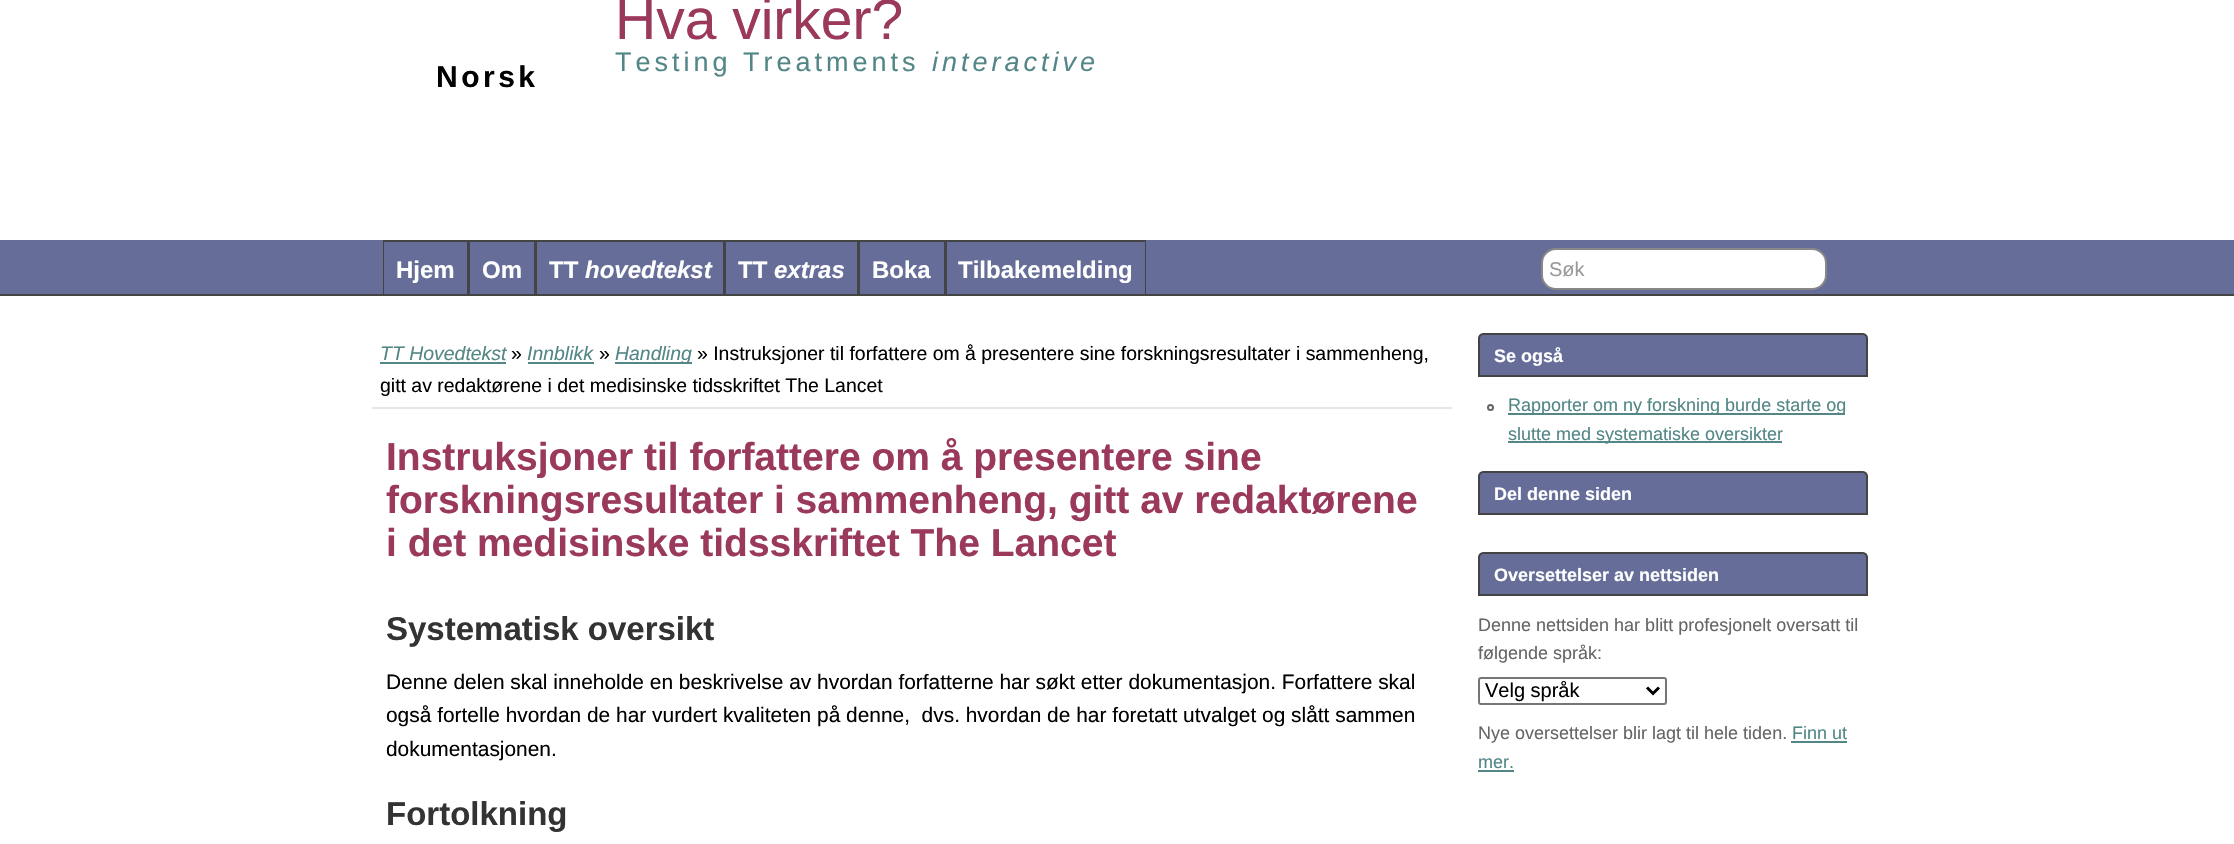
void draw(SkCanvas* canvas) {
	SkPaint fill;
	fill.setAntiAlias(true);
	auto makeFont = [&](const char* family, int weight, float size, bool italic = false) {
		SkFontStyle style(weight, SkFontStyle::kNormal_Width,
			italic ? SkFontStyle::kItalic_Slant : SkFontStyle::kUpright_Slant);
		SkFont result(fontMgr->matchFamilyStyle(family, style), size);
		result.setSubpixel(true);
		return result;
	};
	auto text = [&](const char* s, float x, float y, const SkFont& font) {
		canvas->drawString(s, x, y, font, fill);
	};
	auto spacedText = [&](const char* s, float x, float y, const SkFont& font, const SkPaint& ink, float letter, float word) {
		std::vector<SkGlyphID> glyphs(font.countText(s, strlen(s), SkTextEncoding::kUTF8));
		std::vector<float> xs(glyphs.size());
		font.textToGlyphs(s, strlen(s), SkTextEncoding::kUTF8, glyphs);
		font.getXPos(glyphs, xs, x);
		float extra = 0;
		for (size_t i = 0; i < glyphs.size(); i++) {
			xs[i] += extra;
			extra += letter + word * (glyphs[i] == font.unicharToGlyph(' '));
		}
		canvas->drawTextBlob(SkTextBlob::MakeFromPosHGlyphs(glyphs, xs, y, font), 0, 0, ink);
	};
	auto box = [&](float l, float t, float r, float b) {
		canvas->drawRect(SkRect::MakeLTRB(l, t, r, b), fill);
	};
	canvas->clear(0xFFFFFFFF);
	fill.setColor(0xFF656D98);
	box(0, 240, 2234, 294);
	fill.setColor(0xFF444444);
	box(0, 294, 2234, 296);
	fill.setStyle(SkPaint::kStroke_Style);
	fill.setStrokeWidth(2);
	canvas->drawRect(SkRect::MakeLTRB(384, 241, 467, 295), fill);
	fill.setStyle(SkPaint::kFill_Style);
	fill.setColor(0xFF656D98);
	box(384, 242, 467, 294);
	fill.setStyle(SkPaint::kStroke_Style);
	fill.setColor(0xFF444444);
	canvas->drawRect(SkRect::MakeLTRB(469, 241, 535, 295), fill);
	canvas->drawRect(SkRect::MakeLTRB(537, 241, 724, 295), fill);
	fill.setStyle(SkPaint::kFill_Style);
	fill.setColor(0xFF656D98);
	box(537, 242, 538, 294);
	fill.setStyle(SkPaint::kStroke_Style);
	fill.setColor(0xFF444444);
	canvas->drawRect(SkRect::MakeLTRB(726, 241, 857, 295), fill);
	fill.setStyle(SkPaint::kFill_Style);
	fill.setColor(0xFF656D98);
	box(726, 242, 857, 294);
	fill.setStyle(SkPaint::kStroke_Style);
	fill.setColor(0xFF444444);
	canvas->drawRect(SkRect::MakeLTRB(859, 241, 944, 295), fill);
	fill.setStyle(SkPaint::kFill_Style);
	fill.setColor(0xFF656D98);
	box(943, 242, 944, 294);
	fill.setStyle(SkPaint::kStroke_Style);
	fill.setColor(0xFF444444);
	canvas->drawRect(SkRect::MakeLTRB(946, 241, 1145, 295), fill);
	fill.setStyle(SkPaint::kFill_Style);
	fill.setColor(0xFF656D98);
	box(1144, 242, 1145, 294);
	fill.setColor(0xFFFFFFFF);
	canvas->drawRoundRect(SkRect::MakeLTRB(1542, 249, 1826, 289), 14, 14, fill);
	fill.setStyle(SkPaint::kStroke_Style);
	fill.setColor(0xFF888888);
	canvas->drawRoundRect(SkRect::MakeLTRB(1542, 249, 1826, 289), 14, 14, fill);
	fill.setStyle(SkPaint::kFill_Style);
	fill.setColor(0xFFE7E7E7);
	box(372, 407, 1452, 409);
	fill.setColor(0xFF538687);
	box(380, 362, 506, 364);
	box(528, 362, 594, 364);
	box(615, 362, 692, 364);
	fill.setColor(0xFF656D98);
	canvas->drawPath(SkPathBuilder().moveTo(1483, 334).lineTo(1863, 334).cubicTo(1865, 334, 1867, 336, 1867, 338).lineTo(1867, 376).lineTo(1479, 376).lineTo(1479, 338).cubicTo(1479, 336, 1481, 334, 1483, 334).close().detach(), fill);
	fill.setStyle(SkPaint::kStroke_Style);
	fill.setColor(0xFF444444);
	canvas->drawPath(SkPathBuilder().moveTo(1483, 334).lineTo(1863, 334).cubicTo(1865, 334, 1867, 336, 1867, 338).lineTo(1867, 376).lineTo(1479, 376).lineTo(1479, 338).cubicTo(1479, 336, 1481, 334, 1483, 334).close().detach(), fill);
	fill.setColor(0xFF666666);
	canvas->drawCircle(1490.5f, 407.5f, 2.5f, fill);
	fill.setStyle(SkPaint::kFill_Style);
	fill.setColor(0xFF538687);
	box(1508, 413, 1845, 415);
	box(1508, 441, 1782, 443);
	fill.setColor(0xFF656D98);
	canvas->drawPath(SkPathBuilder().moveTo(1483, 472).lineTo(1863, 472).cubicTo(1865, 472, 1867, 474, 1867, 476).lineTo(1867, 514).lineTo(1479, 514).lineTo(1479, 476).cubicTo(1479, 474, 1481, 472, 1483, 472).close().detach(), fill);
	fill.setStyle(SkPaint::kStroke_Style);
	fill.setColor(0xFF444444);
	canvas->drawPath(SkPathBuilder().moveTo(1483, 472).lineTo(1863, 472).cubicTo(1865, 472, 1867, 474, 1867, 476).lineTo(1867, 514).lineTo(1479, 514).lineTo(1479, 476).cubicTo(1479, 474, 1481, 472, 1483, 472).close().detach(), fill);
	fill.setStyle(SkPaint::kFill_Style);
	fill.setColor(0xFF656D98);
	canvas->drawPath(SkPathBuilder().moveTo(1483, 553).lineTo(1863, 553).cubicTo(1865, 553, 1867, 555, 1867, 557).lineTo(1867, 595).lineTo(1479, 595).lineTo(1479, 557).cubicTo(1479, 555, 1481, 553, 1483, 553).close().detach(), fill);
	fill.setStyle(SkPaint::kStroke_Style);
	fill.setColor(0xFF444444);
	canvas->drawPath(SkPathBuilder().moveTo(1483, 553).lineTo(1863, 553).cubicTo(1865, 553, 1867, 555, 1867, 557).lineTo(1867, 595).lineTo(1479, 595).lineTo(1479, 557).cubicTo(1479, 555, 1481, 553, 1483, 553).close().detach(), fill);
	fill.setColor(0xFF767676);
	canvas->drawRoundRect(SkRect::MakeLTRB(1479, 678, 1666, 704), 2, 2, fill);
	fill.setStrokeWidth(3);
	fill.setColor(0xFF000000);
	canvas->drawPath(SkPathBuilder().moveTo(1647, 687.5f).lineTo(1653, 693.5f).lineTo(1659, 687.5f).detach(), fill);
	fill.setStyle(SkPaint::kFill_Style);
	fill.setColor(0xFF538687);
	box(1791, 741, 1847, 743);
	box(1478, 770, 1514, 772);
	auto font1 = makeFont("Liberation Sans", 700, 30);
	fill.setColor(0xFF000000);
	spacedText("Norsk", 436, 87, font1, fill, 3.5f, 0);
	auto font2 = makeFont("Liberation Sans", 400, 57);
	fill.setColor(0xFF9A395C);
	text("Hva virker?", 615, 39, font2);
	auto font3 = makeFont("Liberation Sans", 400, 27);
	fill.setColor(0xFF538687);
	spacedText("Testing Treatments", 615, 71, font3, fill, 4, 0);
	auto font4 = makeFont("Liberation Sans", 400, 27, true);
	spacedText("interactive", 932, 71, font4, fill, 4, 0);
	auto font5 = makeFont("Liberation Sans", 700, 24);
	fill.setColor(0xFFFFFFFF);
	text("Hjem", 396, 278, font5);
	text("Om", 482, 278, font5);
	text("TT", 549, 278, font5);
	auto font6 = makeFont("Liberation Sans", 700, 24, true);
	text("hovedtekst", 585, 278, font6);
	text("TT", 738, 278, font5);
	text("extras", 774, 278, font6);
	text("Boka", 872, 278, font5);
	text("Tilbakemelding", 958, 278, font5);
	auto font7 = makeFont("Liberation Sans", 400, 20);
	fill.setColor(0xFF999999);
	text("Søk", 1549, 276, font7);
	auto font8 = makeFont("Liberation Sans", 400, 19.45f, true);
	fill.setColor(0xFF538687);
	text("TT Hovedtekst", 380, 360, font8);
	auto font9 = makeFont("Liberation Sans", 400, 19.45f);
	fill.setColor(0xFF000000);
	text("»", 511, 360, font9);
	fill.setColor(0xFF538687);
	text("Innblikk", 527, 360, font8);
	fill.setColor(0xFF000000);
	text("»", 599, 360, font9);
	fill.setColor(0xFF538687);
	text("Handling", 615, 360, font8);
	fill.setColor(0xFF000000);
	text("» Instruksjoner til forfattere om å presentere sine forskningsresultater i sammenheng,", 697, 360, font9);
	text("gitt av redaktørene i det medisinske tidsskriftet The Lancet", 380, 392, font9);
	auto font10 = makeFont("Liberation Sans", 700, 39);
	fill.setColor(0xFF9A395C);
	text("Instruksjoner til forfattere om å presentere sine", 386, 470, font10);
	text("forskningsresultater i sammenheng, gitt av redaktørene", 386, 513, font10);
	text("i det medisinske tidsskriftet The Lancet", 386, 556, font10);
	auto font11 = makeFont("Liberation Sans", 700, 33);
	fill.setColor(0xFF333333);
	text("Systematisk oversikt", 386, 640, font11);
	auto font12 = makeFont("Liberation Sans", 400, 20.9f);
	fill.setColor(0xFF000000);
	text("Denne delen skal inneholde en beskrivelse av hvordan forfatterne har søkt etter dokumentasjon. Forfattere skal", 386, 689, font12);
	text("også fortelle hvordan de har vurdert kvaliteten på denne,  dvs. hvordan de har foretatt utvalget og slått sammen", 386, 722, font12);
	text("dokumentasjonen.", 386, 756, font12);
	fill.setColor(0xFF333333);
	text("Fortolkning", 386, 825, font11);
	auto font13 = makeFont("Liberation Sans", 700, 18);
	fill.setColor(0xFFFFFFFF);
	text("Se også", 1494, 362, font13);
	auto font14 = makeFont("Liberation Sans", 400, 18);
	fill.setColor(0xFF538687);
	text("Rapporter om ny forskning burde starte og", 1508, 411, font14);
	text("slutte med systematiske oversikter", 1508, 440, font14);
	fill.setColor(0xFFFFFFFF);
	text("Del denne siden", 1494, 500, font13);
	text("Oversettelser av nettsiden", 1494, 581, font13);
	fill.setColor(0xFF666666);
	text("Denne nettsiden har blitt profesjonelt oversatt til", 1478, 631, font14);
	text("følgende språk:", 1478, 659, font14);
	fill.setColor(0xFF000000);
	text("Velg språk", 1485, 697, font7);
	fill.setColor(0xFF666666);
	text("Nye oversettelser blir lagt til hele tiden.", 1478, 739, font14);
	fill.setColor(0xFF538687);
	text("Finn ut", 1792, 739, font14);
	text("mer.", 1478, 768, font14);
}
